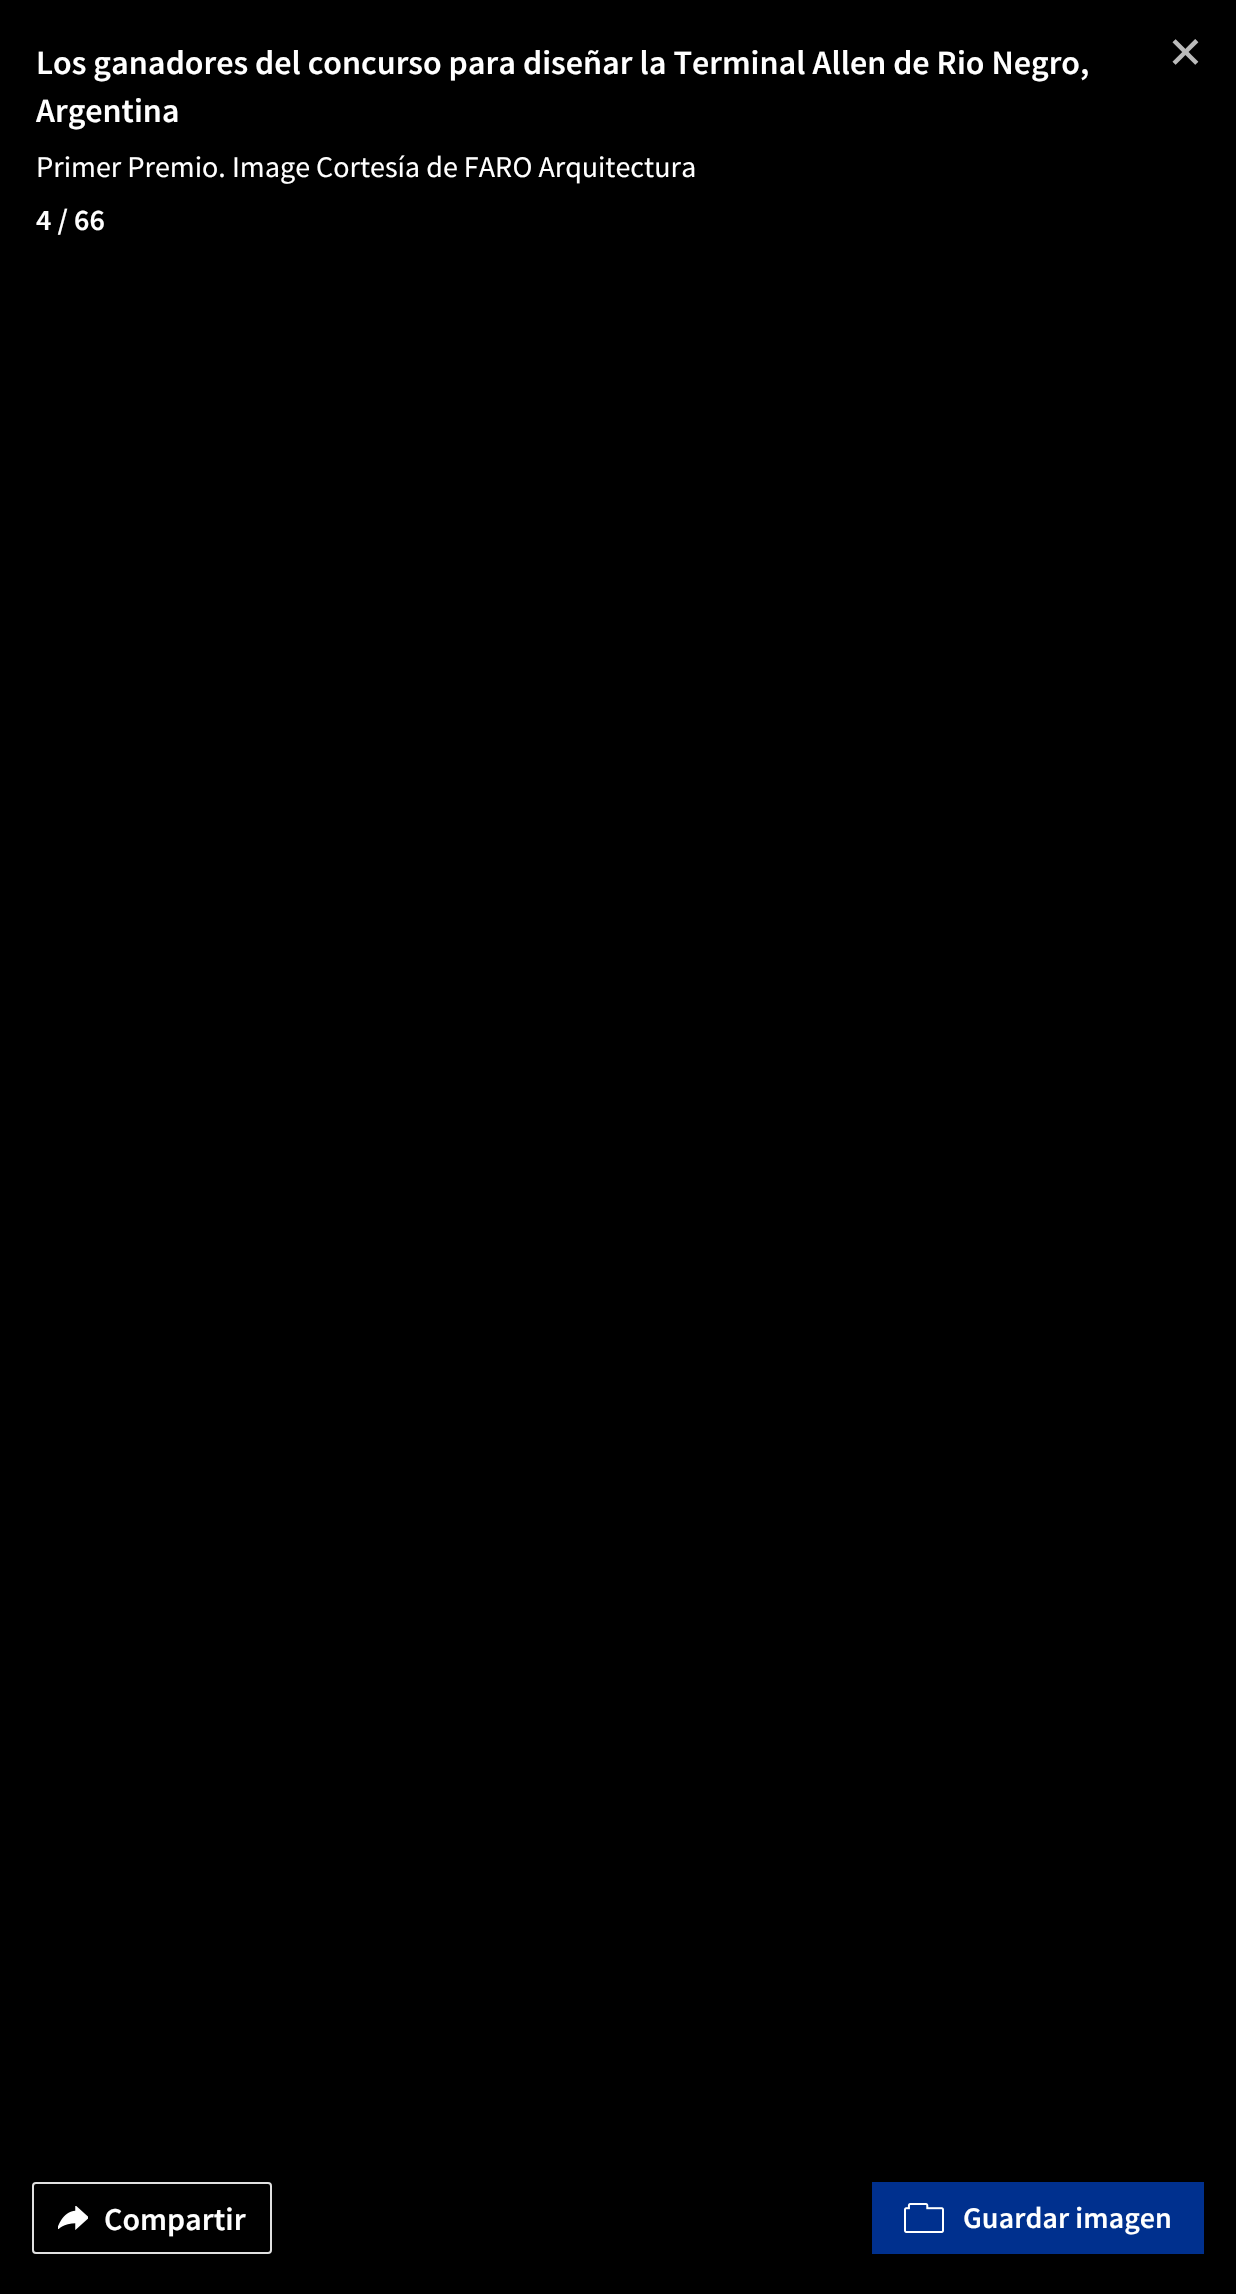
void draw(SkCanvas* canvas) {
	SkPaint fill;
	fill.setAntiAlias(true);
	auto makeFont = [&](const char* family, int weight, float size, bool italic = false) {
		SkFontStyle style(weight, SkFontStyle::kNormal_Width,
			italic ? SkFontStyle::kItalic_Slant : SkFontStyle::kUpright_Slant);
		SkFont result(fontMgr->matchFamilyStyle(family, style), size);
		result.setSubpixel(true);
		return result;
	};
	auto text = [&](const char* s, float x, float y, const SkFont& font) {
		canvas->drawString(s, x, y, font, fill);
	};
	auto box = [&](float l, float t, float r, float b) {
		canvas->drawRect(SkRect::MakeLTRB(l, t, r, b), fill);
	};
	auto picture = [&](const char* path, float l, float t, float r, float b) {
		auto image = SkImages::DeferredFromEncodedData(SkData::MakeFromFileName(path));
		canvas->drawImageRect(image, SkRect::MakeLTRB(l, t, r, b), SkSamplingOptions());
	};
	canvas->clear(0xFF000000);
	fill.setStyle(SkPaint::kStroke_Style);
	fill.setStrokeWidth(2);
	fill.setColor(0xFFE1E1E1);
	canvas->drawRoundRect(SkRect::MakeLTRB(33, 2183, 271, 2253), 3, 3, fill);
	picture("image0.png", 58, 2206, 88, 2230);
	fill.setStyle(SkPaint::kFill_Style);
	fill.setColor(0xFF00308E);
	box(872, 2182, 1204, 2254);
	picture("image1.png", 904, 2203, 944, 2233);
	auto font1 = makeFont("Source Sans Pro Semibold", 600, 34);
	fill.setColor(0xFFFFFFFF);
	text("Los ganadores del concurso para diseñar la Terminal Allen de Rio Negro,", 36, 74, font1);
	text("Argentina", 36, 122, font1);
	auto font2 = makeFont("Source Sans Pro", 400, 30);
	text("Primer Premio. Image Cortesía de FARO Arquitectura", 36, 177, font2);
	auto font3 = makeFont("Source Sans Pro Semibold", 600, 30);
	text("4 / 66", 36, 230, font3);
	auto font4 = makeFont("DejaVu Sans", 400, 44);
	fill.setColor(0xFFBBBBBB);
	text("✕", 1167, 68, font4);
	auto font5 = makeFont("Source Sans Pro Semibold", 600, 32);
	fill.setColor(0xFFFFFFFF);
	text("Compartir", 104, 2230, font5);
	text("Guardar imagen", 963, 2228, font3);
}
